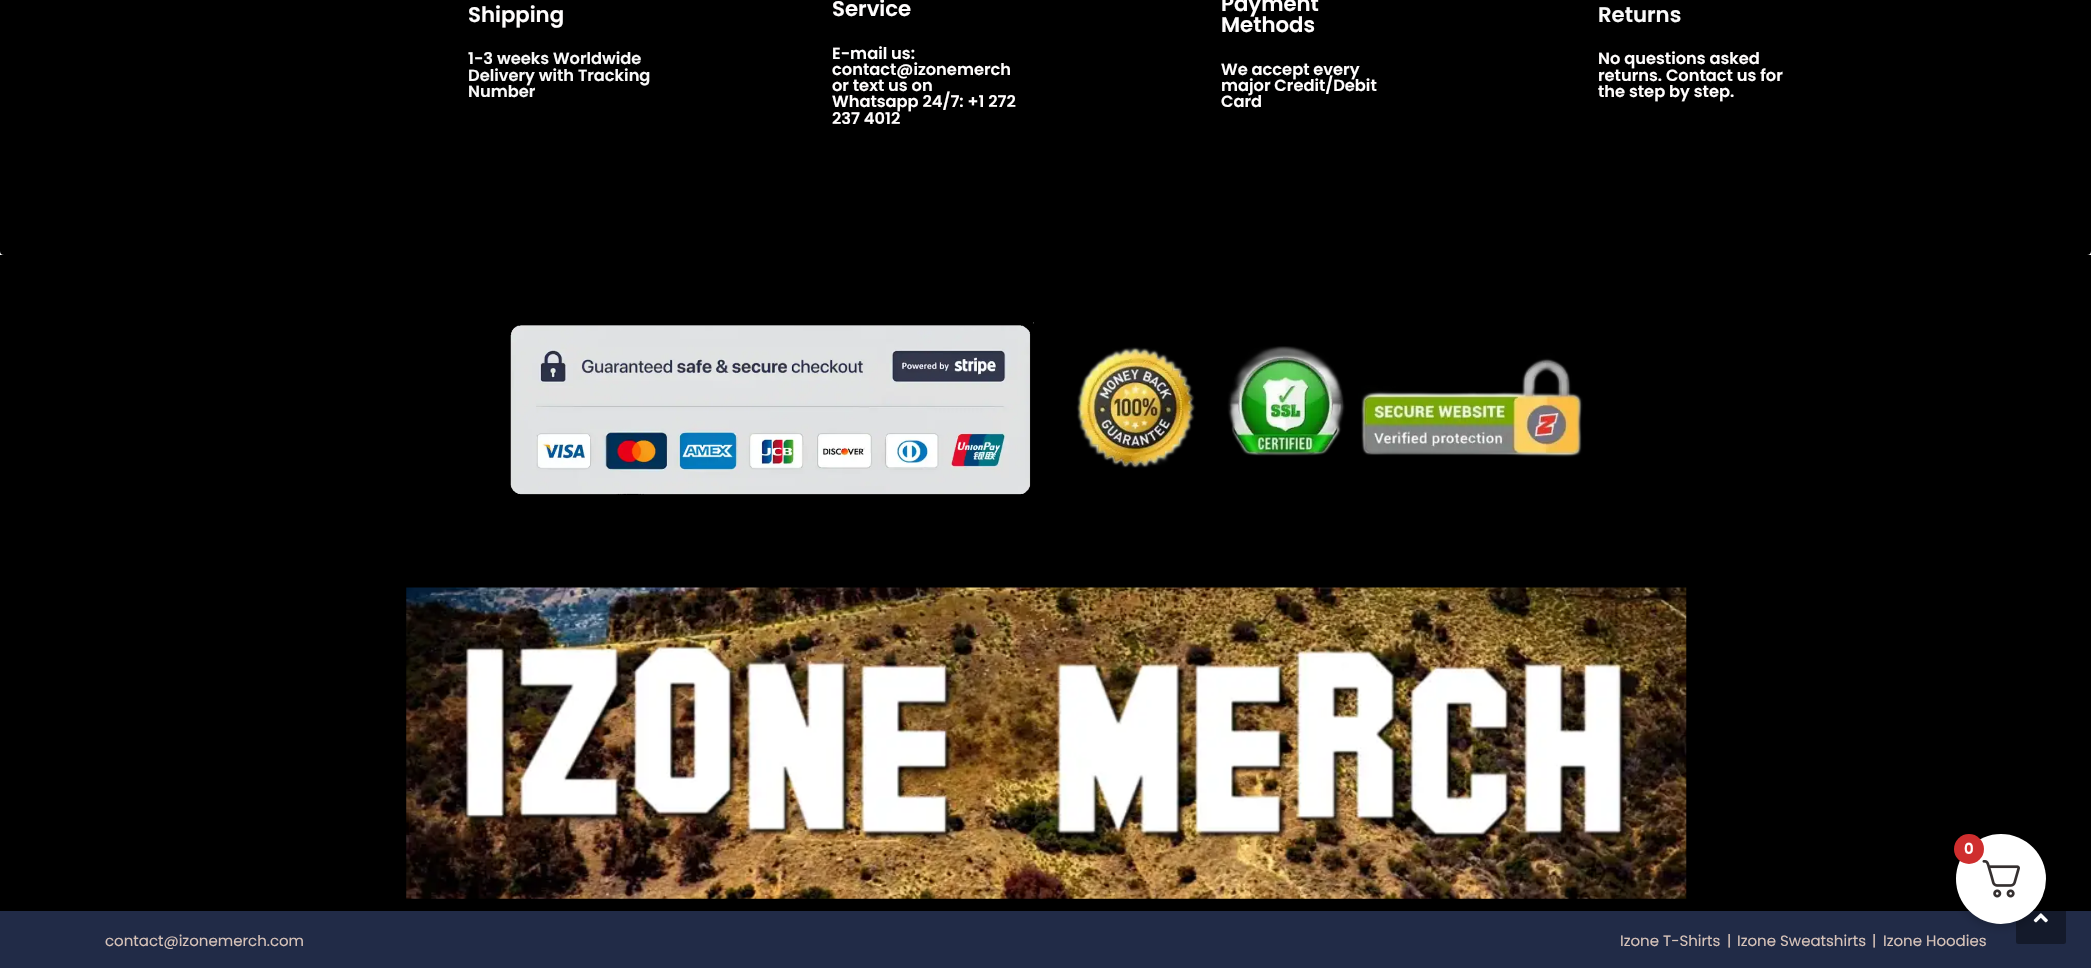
void draw(SkCanvas* canvas) {
	SkPaint fill;
	fill.setAntiAlias(true);
	auto makeFont = [&](const char* family, int weight, float size, bool italic = false) {
		SkFontStyle style(weight, SkFontStyle::kNormal_Width,
			italic ? SkFontStyle::kItalic_Slant : SkFontStyle::kUpright_Slant);
		SkFont result(fontMgr->matchFamilyStyle(family, style), size);
		result.setSubpixel(true);
		return result;
	};
	auto text = [&](const char* s, float x, float y, const SkFont& font) {
		canvas->drawString(s, x, y, font, fill);
	};
	auto box = [&](float l, float t, float r, float b) {
		canvas->drawRect(SkRect::MakeLTRB(l, t, r, b), fill);
	};
	auto roundBox = [&](float l, float t, float r, float b, float radius) {
		canvas->drawRoundRect(SkRect::MakeLTRB(l, t, r, b), radius, radius, fill);
	};
	auto picture = [&](const char* path, float l, float t, float r, float b) {
		auto image = SkImages::DeferredFromEncodedData(SkData::MakeFromFileName(path));
		canvas->drawImageRect(image, SkRect::MakeLTRB(l, t, r, b), SkSamplingOptions());
	};
	canvas->clear(0xFFFFFFFF);
	fill.setColor(0xFF000000);
	roundBox(0, -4, 2091, 255, 4);
	box(0, 255, 2091, 911);
	picture("image0.png", 510, 322, 1034, 495);
	picture("image1.png", 1076, 346, 1583, 468);
	picture("image2.png", 406, 587, 1687, 899);
	fill.setColor(0xFF212B47);
	box(0, 911, 2091, 968);
	fill.setColor(0x66000000);
	roundBox(2016, 894, 2066, 944, 2.5f);
	picture("image4.png", 2033, 913, 2048, 923);
	fill.setColor(0x40000000);
	fill.setMaskFilter(SkMaskFilter::MakeBlur(kNormal_SkBlurStyle, 5));
	canvas->drawRoundRect(SkRect::MakeLTRB(1956, 836, 2046, 926), 45, 45, fill);
	fill.setMaskFilter(nullptr);
	fill.setColor(0xFFFFFFFF);
	canvas->drawCircle(2001, 879, 45, fill);
	picture("image3.png", 1982, 860, 2020, 898);
	fill.setColor(0xFFCF2E2E);
	canvas->drawCircle(1969, 849, 15, fill);
	auto font1 = makeFont("Poppins", 600, 21.25f);
	fill.setColor(0xFFFFFDFD);
	text("Shipping", 468, 22, font1);
	auto font2 = makeFont("Poppins", 600, 16.25f);
	fill.setColor(0xFFF9F9F9);
	text("1-3 weeks Worldwide", 468, 64, font2);
	text("Delivery with Tracking", 468, 81, font2);
	text("Number", 468, 97, font2);
	fill.setColor(0xFFFFFDFD);
	text("Service", 832, 16, font1);
	text("E-mail us:", 832, 59, font2);
	text("contact@izonemerch", 832, 75, font2);
	text("or text us on", 832, 91, font2);
	text("Whatsapp 24/7: +1 272", 832, 107, font2);
	text("237 4012", 832, 124, font2);
	text("Payment", 1221, 11, font1);
	text("Methods", 1221, 32, font1);
	text("We accept every", 1221, 75, font2);
	text("major Credit/Debit", 1221, 91, font2);
	text("Card", 1221, 107, font2);
	fill.setColor(0xFFF9F9F9);
	text("Returns", 1598, 22, font1);
	fill.setColor(0xFFFFFDFD);
	text("No questions asked", 1598, 64, font2);
	text("returns. Contact us for", 1598, 81, font2);
	text("the step by step.", 1598, 97, font2);
	auto font3 = makeFont("Poppins", 400, 15);
	fill.setColor(0xFFD7C3B9);
	text("contact@izonemerch.com", 105, 946, font3);
	text("Izone T-Shirts", 1620, 946, font3);
	text("|", 1727, 946, font3);
	text("Izone Sweatshirts", 1737, 946, font3);
	text("|", 1872, 946, font3);
	text("Izone Hoodies", 1883, 946, font3);
	auto font4 = makeFont("Poppins", 600, 15);
	fill.setColor(0xFFFFFDFD);
	text("0", 1964, 854, font4);
}
